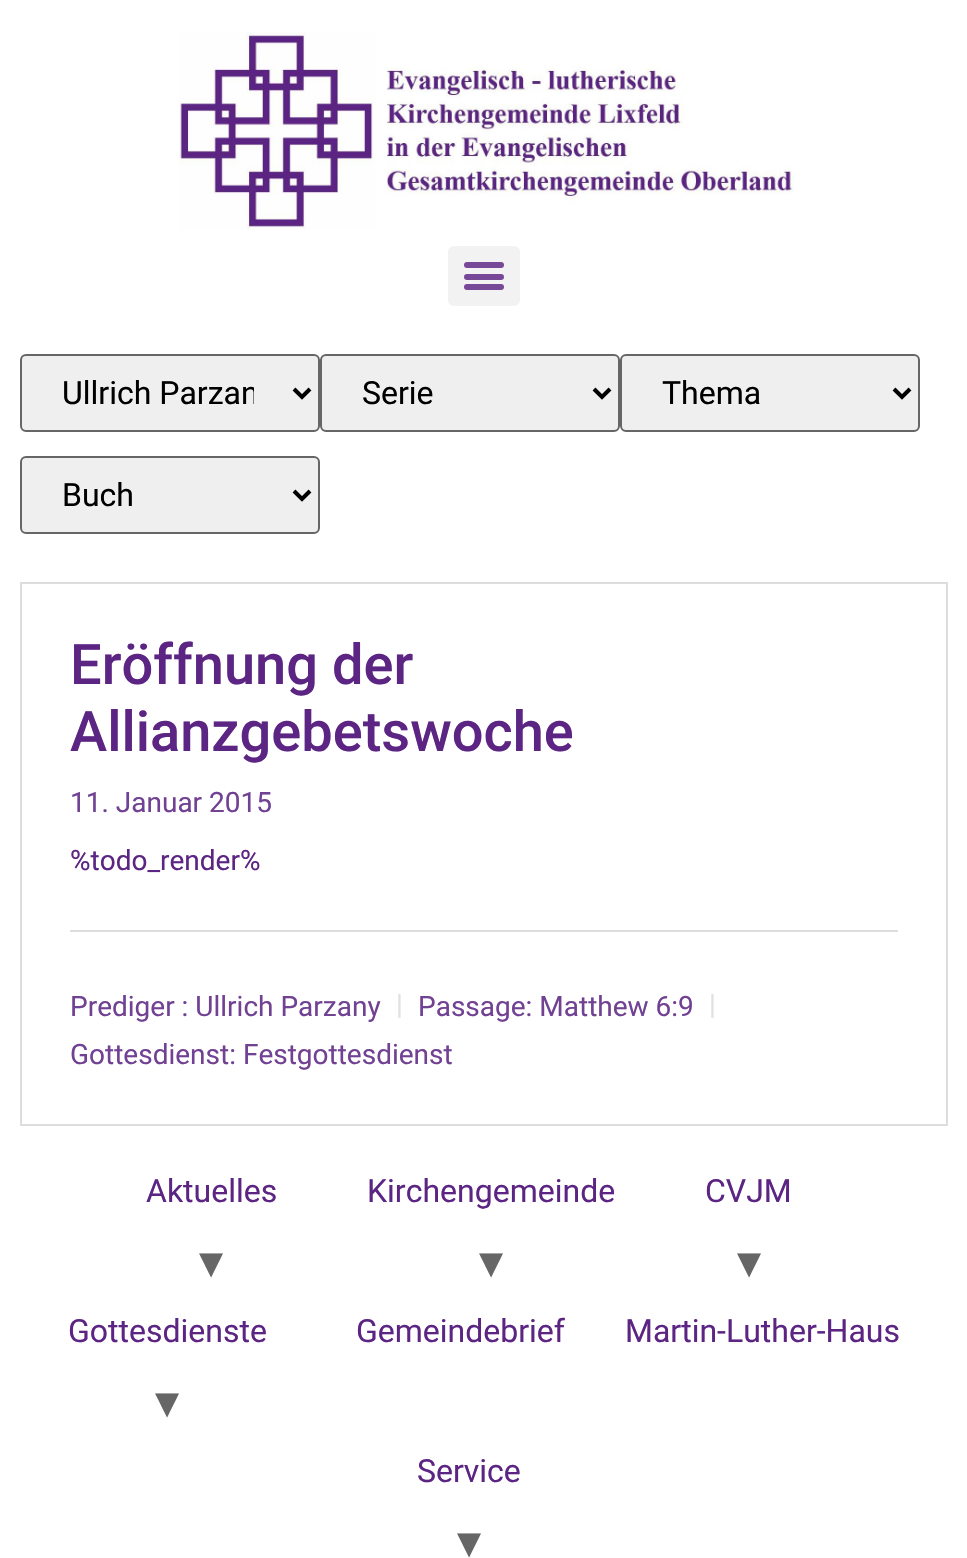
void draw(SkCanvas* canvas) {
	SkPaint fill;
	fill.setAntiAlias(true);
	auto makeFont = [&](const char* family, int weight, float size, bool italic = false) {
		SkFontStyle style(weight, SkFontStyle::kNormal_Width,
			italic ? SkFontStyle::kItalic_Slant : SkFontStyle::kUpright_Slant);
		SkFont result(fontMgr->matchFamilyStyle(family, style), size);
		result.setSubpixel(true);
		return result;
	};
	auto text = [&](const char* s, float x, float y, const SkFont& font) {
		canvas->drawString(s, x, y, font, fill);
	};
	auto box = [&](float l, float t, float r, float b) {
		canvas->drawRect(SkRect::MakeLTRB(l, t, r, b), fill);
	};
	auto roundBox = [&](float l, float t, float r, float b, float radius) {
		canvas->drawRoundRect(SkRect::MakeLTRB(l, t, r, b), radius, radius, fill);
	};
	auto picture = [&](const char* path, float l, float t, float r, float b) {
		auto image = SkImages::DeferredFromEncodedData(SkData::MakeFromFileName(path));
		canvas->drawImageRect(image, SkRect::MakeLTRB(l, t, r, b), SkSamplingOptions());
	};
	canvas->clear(0xFFFFFFFF);
	picture("image0.png", 179, 32, 794, 230);
	fill.setColor(0xFFF2F2F2);
	roundBox(448, 246, 520, 306, 6);
	fill.setColor(0xFF774898);
	roundBox(464, 274, 504, 280, 3);
	roundBox(464, 262, 504, 268, 3);
	roundBox(464, 284, 504, 290, 3);
	fill.setColor(0xFFEFEFEF);
	canvas->drawRoundRect(SkRect::MakeLTRB(21, 355, 319, 431), 5, 5, fill);
	fill.setStyle(SkPaint::kStroke_Style);
	fill.setStrokeWidth(2);
	fill.setColor(0xFF666666);
	canvas->drawRoundRect(SkRect::MakeLTRB(21, 355, 319, 431), 5, 5, fill);
	fill.setStrokeWidth(4);
	fill.setColor(0xFF000000);
	canvas->drawPath(SkPathBuilder().moveTo(294, 389).lineTo(302, 397).lineTo(310, 389).detach(), fill);
	fill.setStyle(SkPaint::kFill_Style);
	fill.setColor(0xFFEFEFEF);
	canvas->drawRoundRect(SkRect::MakeLTRB(321, 355, 619, 431), 5, 5, fill);
	fill.setStyle(SkPaint::kStroke_Style);
	fill.setStrokeWidth(2);
	fill.setColor(0xFF666666);
	canvas->drawRoundRect(SkRect::MakeLTRB(321, 355, 619, 431), 5, 5, fill);
	fill.setStrokeWidth(4);
	fill.setColor(0xFF000000);
	canvas->drawPath(SkPathBuilder().moveTo(594, 389).lineTo(602, 397).lineTo(610, 389).detach(), fill);
	fill.setStyle(SkPaint::kFill_Style);
	fill.setColor(0xFFEFEFEF);
	canvas->drawRoundRect(SkRect::MakeLTRB(621, 355, 919, 431), 5, 5, fill);
	fill.setStyle(SkPaint::kStroke_Style);
	fill.setStrokeWidth(2);
	fill.setColor(0xFF666666);
	canvas->drawRoundRect(SkRect::MakeLTRB(621, 355, 919, 431), 5, 5, fill);
	fill.setStrokeWidth(4);
	fill.setColor(0xFF000000);
	canvas->drawPath(SkPathBuilder().moveTo(894, 389).lineTo(902, 397).lineTo(910, 389).detach(), fill);
	fill.setStyle(SkPaint::kFill_Style);
	fill.setColor(0xFFEFEFEF);
	canvas->drawRoundRect(SkRect::MakeLTRB(21, 457, 319, 533), 5, 5, fill);
	fill.setStyle(SkPaint::kStroke_Style);
	fill.setStrokeWidth(2);
	fill.setColor(0xFF666666);
	canvas->drawRoundRect(SkRect::MakeLTRB(21, 457, 319, 533), 5, 5, fill);
	fill.setStrokeWidth(4);
	fill.setColor(0xFF000000);
	canvas->drawPath(SkPathBuilder().moveTo(294, 491).lineTo(302, 499).lineTo(310, 491).detach(), fill);
	fill.setStrokeWidth(2);
	fill.setColor(0xFFDDDDDD);
	canvas->drawRect(SkRect::MakeLTRB(21, 583, 947, 1125), fill);
	fill.setStyle(SkPaint::kFill_Style);
	box(70, 930, 898, 932);
	canvas->save();
	canvas->clipRect(SkRect::MakeLTRB(62, 372, 254, 414));
	auto font1 = makeFont("Roboto", 400, 32);
	fill.setColor(0xFF000000);
	text("Ullrich Parzan", 62, 404, font1);
	canvas->restore();
	text("Serie", 362, 404, font1);
	text("Thema", 662, 404, font1);
	text("Buch", 62, 506, font1);
	auto font2 = makeFont("Roboto", 500, 56);
	fill.setColor(0xFF5C2583);
	text("Eröffnung der", 70, 684, font2);
	text("Allianzgebetswoche", 70, 751, font2);
	auto font3 = makeFont("Roboto", 400, 28);
	fill.setColor(0xFF714193);
	text("11. Januar 2015", 70, 812, font3);
	fill.setColor(0xFF5C2583);
	text("%todo_render%", 70, 870, font3);
	fill.setColor(0xFF714193);
	text("Prediger : Ullrich Parzany", 70, 1016, font3);
	fill.setColor(0xFFE1E1E1);
	text("|", 396, 1014, font3);
	fill.setColor(0xFF714193);
	text("Passage: Matthew 6:9", 418, 1016, font3);
	fill.setColor(0xFFE1E1E1);
	text("|", 709, 1014, font3);
	fill.setColor(0xFF714193);
	text("Gottesdienst: Festgottesdienst", 70, 1064, font3);
	fill.setColor(0xFF5C2583);
	text("Aktuelles", 146, 1202, font1);
	auto font4 = makeFont("DejaVu Sans", 400, 48);
	fill.setColor(0xFF666666);
	text("▾", 199, 1278, font4);
	fill.setColor(0xFF5C2583);
	text("Kirchengemeinde", 367, 1202, font1);
	fill.setColor(0xFF666666);
	text("▾", 479, 1278, font4);
	fill.setColor(0xFF5C2583);
	text("CVJM", 705, 1202, font1);
	fill.setColor(0xFF666666);
	text("▾", 737, 1278, font4);
	fill.setColor(0xFF5C2583);
	text("Gottesdienste", 68, 1342, font1);
	fill.setColor(0xFF666666);
	text("▾", 155, 1418, font4);
	fill.setColor(0xFF5C2583);
	text("Gemeindebrief", 356, 1342, font1);
	text("Martin-Luther-Haus", 625, 1342, font1);
	text("Service", 417, 1482, font1);
	fill.setColor(0xFF666666);
	text("▾", 457, 1558, font4);
}
